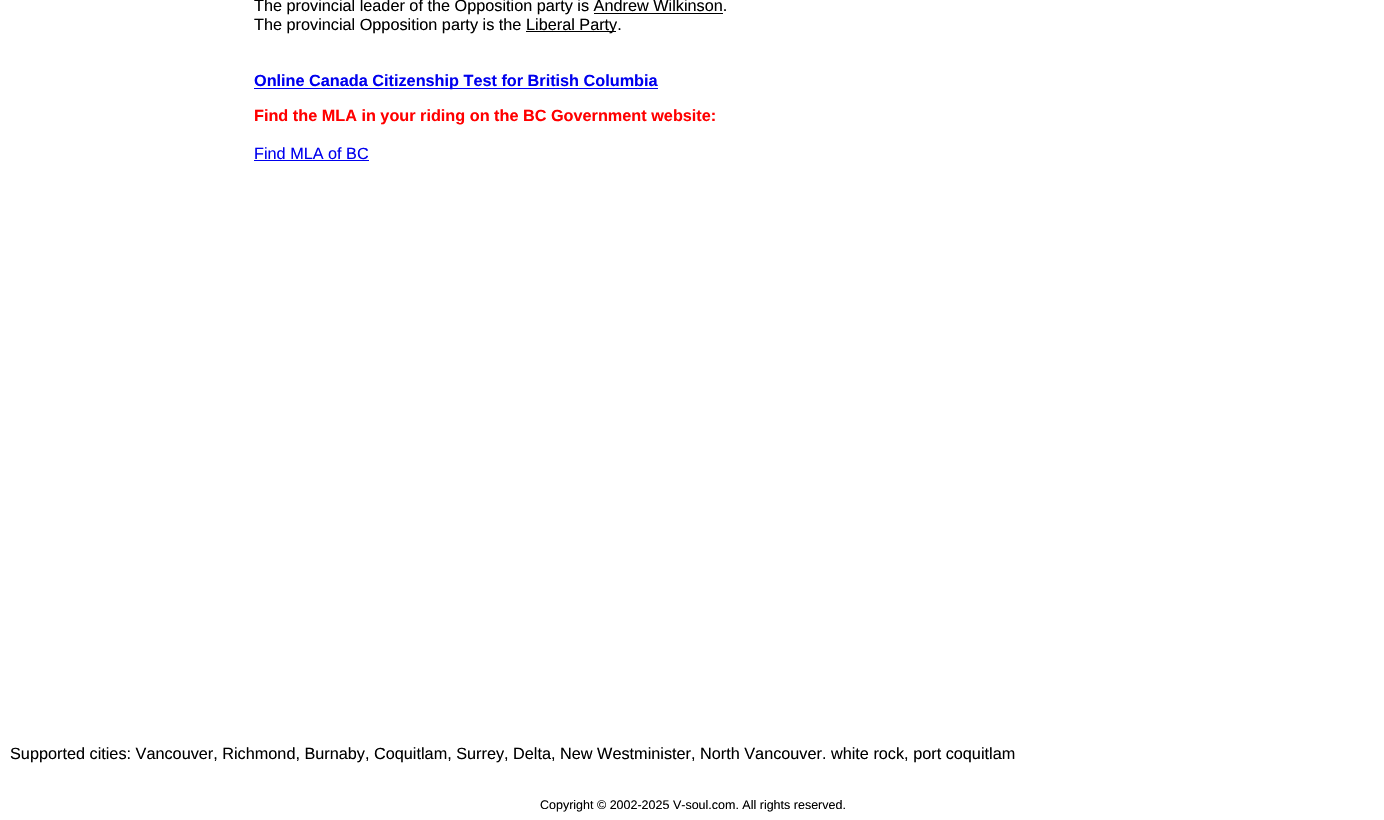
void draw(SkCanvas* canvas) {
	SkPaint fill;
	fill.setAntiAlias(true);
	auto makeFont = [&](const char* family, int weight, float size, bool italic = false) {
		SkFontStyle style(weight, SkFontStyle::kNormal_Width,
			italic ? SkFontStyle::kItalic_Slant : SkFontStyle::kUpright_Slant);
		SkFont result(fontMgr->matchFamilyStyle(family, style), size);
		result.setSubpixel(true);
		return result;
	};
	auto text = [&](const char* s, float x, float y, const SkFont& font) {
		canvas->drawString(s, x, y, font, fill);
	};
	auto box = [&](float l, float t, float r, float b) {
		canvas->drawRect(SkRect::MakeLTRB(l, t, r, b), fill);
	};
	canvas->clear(0xFFFFFFFF);
	fill.setColor(0xFF000000);
	box(594, 13, 723, 14);
	box(526, 31, 616, 32);
	fill.setColor(0xFF0000EE);
	box(254, 88, 658, 89);
	box(254, 160, 369, 161);
	auto font1 = makeFont("Liberation Sans", 400, 16.25f);
	fill.setColor(0xFF000000);
	text("The provincial leader of the Opposition party is Andrew Wilkinson.", 254, 11, font1);
	text("The provincial Opposition party is the", 254, 30, font1);
	text("Liberal Party.", 526, 30, font1);
	auto font2 = makeFont("Liberation Sans", 700, 16.25f);
	fill.setColor(0xFF0000EE);
	text("Online Canada Citizenship Test for British Columbia", 254, 86, font2);
	fill.setColor(0xFFFF0000);
	text("Find the MLA in your riding on the BC Government website:", 254, 121, font2);
	fill.setColor(0xFF0000EE);
	text("Find MLA of BC", 254, 159, font1);
	fill.setColor(0xFF000000);
	text("Supported cities: Vancouver, Richmond, Burnaby, Coquitlam, Surrey, Delta, New Westminister, North Vancouver. white rock, port coquitlam", 10, 759, font1);
	auto font3 = makeFont("Liberation Sans", 400, 12.5f);
	text("Copyright © 2002-2025 V-soul.com. All rights reserved.", 540, 809, font3);
}
